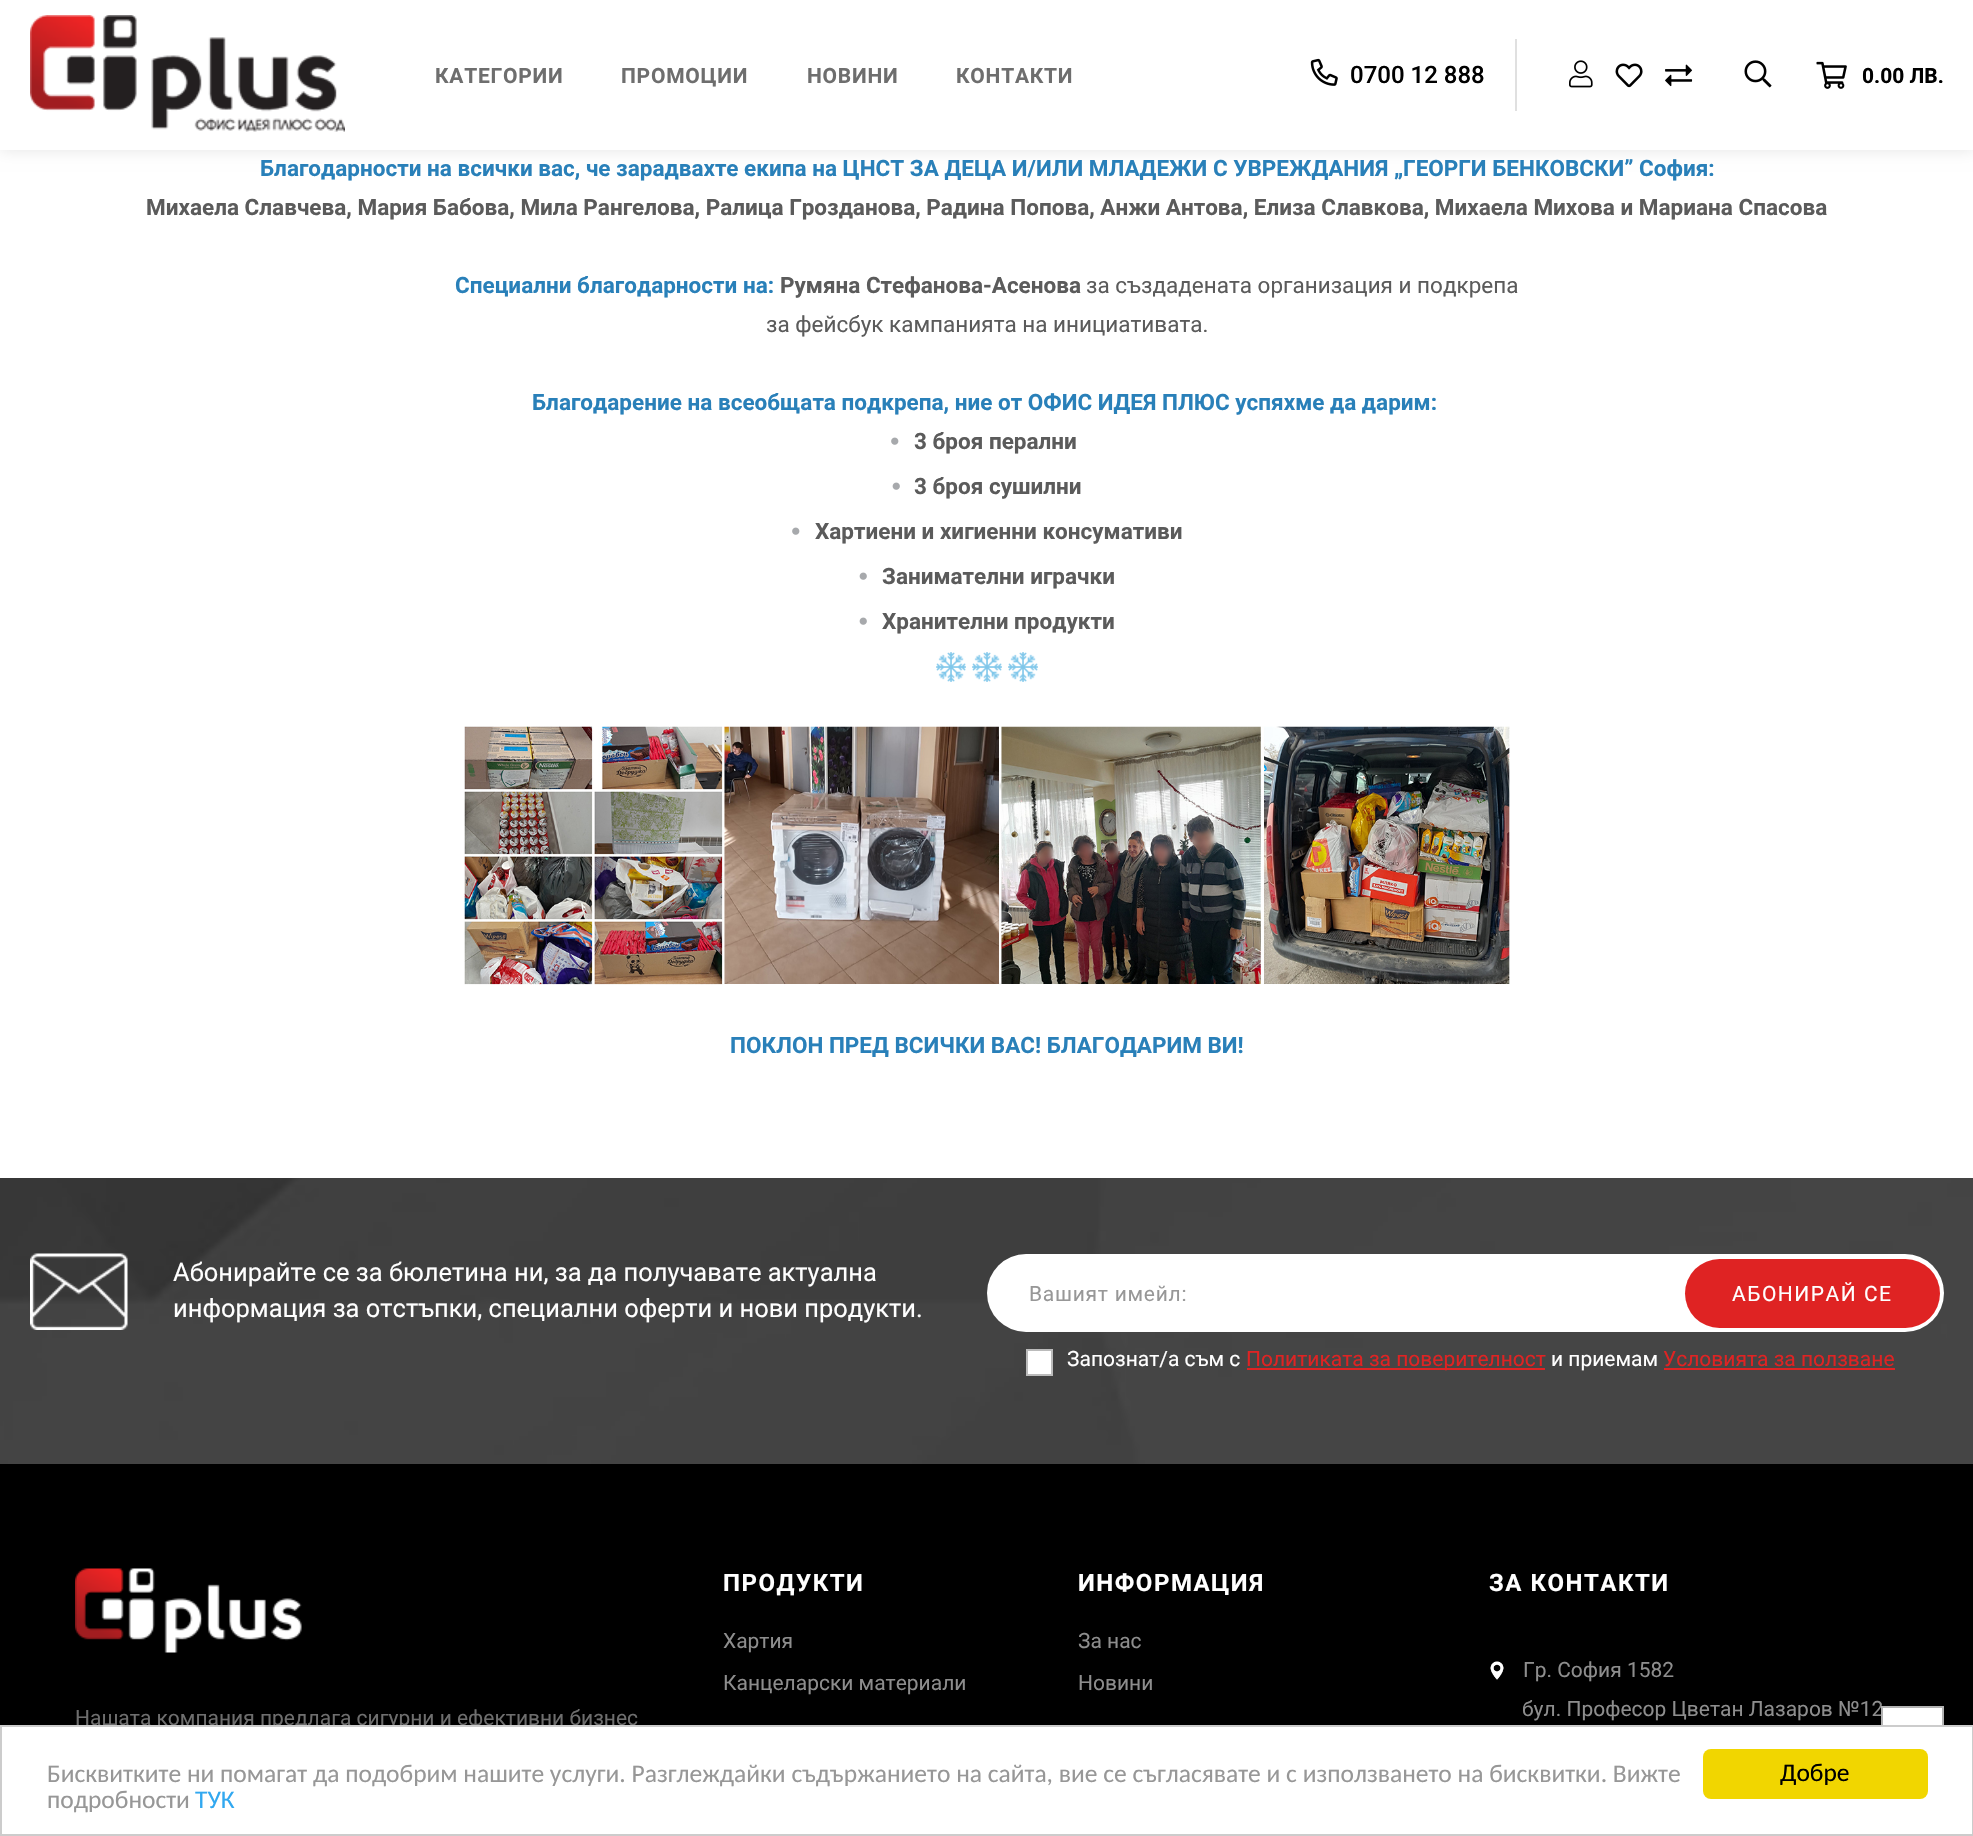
void draw(SkCanvas* canvas) {
	SkPaint fill;
	fill.setAntiAlias(true);
	auto makeFont = [&](const char* family, int weight, float size, bool italic = false) {
		SkFontStyle style(weight, SkFontStyle::kNormal_Width,
			italic ? SkFontStyle::kItalic_Slant : SkFontStyle::kUpright_Slant);
		SkFont result(fontMgr->matchFamilyStyle(family, style), size);
		result.setSubpixel(true);
		return result;
	};
	auto text = [&](const char* s, float x, float y, const SkFont& font) {
		canvas->drawString(s, x, y, font, fill);
	};
	auto spacedText = [&](const char* s, float x, float y, const SkFont& font, const SkPaint& ink, float letter, float word) {
		std::vector<SkGlyphID> glyphs(font.countText(s, strlen(s), SkTextEncoding::kUTF8));
		std::vector<float> xs(glyphs.size());
		font.textToGlyphs(s, strlen(s), SkTextEncoding::kUTF8, glyphs);
		font.getXPos(glyphs, xs, x);
		float extra = 0;
		for (size_t i = 0; i < glyphs.size(); i++) {
			xs[i] += extra;
			extra += letter + word * (glyphs[i] == font.unicharToGlyph(' '));
		}
		canvas->drawTextBlob(SkTextBlob::MakeFromPosHGlyphs(glyphs, xs, y, font), 0, 0, ink);
	};
	auto box = [&](float l, float t, float r, float b) {
		canvas->drawRect(SkRect::MakeLTRB(l, t, r, b), fill);
	};
	auto roundBox = [&](float l, float t, float r, float b, float radius) {
		canvas->drawRoundRect(SkRect::MakeLTRB(l, t, r, b), radius, radius, fill);
	};
	auto picture = [&](const char* path, float l, float t, float r, float b) {
		auto image = SkImages::DeferredFromEncodedData(SkData::MakeFromFileName(path));
		canvas->drawImageRect(image, SkRect::MakeLTRB(l, t, r, b), SkSamplingOptions());
	};
	canvas->clear(0xFFFFFFFF);
	fill.setColor(0x1A000000);
	fill.setMaskFilter(SkMaskFilter::MakeBlur(kNormal_SkBlurStyle, 7.5f));
	canvas->drawRect(SkRect::MakeLTRB(0, 0, 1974, 150), fill);
	fill.setMaskFilter(nullptr);
	fill.setColor(0xFFFFFFFF);
	box(0, 0, 1973, 150);
	picture("image0.png", 30, 15, 345, 132);
	fill.setColor(0xFFE0E0E0);
	box(1515, 39, 1517, 111);
	picture("image1.png", 1310, 58, 1338, 86);
	picture("image2.png", 1569, 60, 1593, 88);
	picture("image3.png", 1615, 63, 1643, 88);
	picture("image4.png", 1665, 64, 1693, 87);
	picture("image5.png", 1744, 60, 1772, 88);
	picture("image6.png", 1816, 61, 1847, 89);
	picture("image7.png", 891, 437, 899, 445);
	picture("image8.png", 892, 482, 900, 490);
	picture("image7.png", 792, 527, 800, 535);
	picture("image8.png", 859, 572, 867, 580);
	picture("image8.png", 859, 617, 867, 625);
	picture("image9.png", 936, 652, 966, 682);
	picture("image10.png", 972, 652, 1002, 682);
	picture("image11.png", 1008, 652, 1038, 682);
	picture("image12.png", 464, 726, 1510, 985);
	picture("image13.png", 0, 1178, 1973, 1464);
	picture("image14.png", 30, 1253, 128, 1330);
	fill.setColor(0xFFFFFFFF);
	roundBox(987, 1254, 1944, 1332, 39);
	fill.setColor(0xFFDF2323);
	roundBox(1685, 1259, 1940, 1328, 34.5f);
	fill.setColor(0xFFFFFFFF);
	canvas->drawRect(SkRect::MakeLTRB(1027, 1350, 1052, 1375), fill);
	fill.setStyle(SkPaint::kStroke_Style);
	fill.setStrokeWidth(2);
	fill.setColor(0xFFBBBBBB);
	canvas->drawRect(SkRect::MakeLTRB(1027, 1350, 1052, 1375), fill);
	fill.setStyle(SkPaint::kFill_Style);
	fill.setColor(0xFFDF2323);
	box(1247, 1368, 1545, 1370);
	box(1664, 1368, 1895, 1370);
	fill.setColor(0xFF000000);
	box(0, 1464, 1973, 1725);
	picture("image15.png", 75, 1568, 302, 1653);
	picture("image16.png", 1490, 1661, 1504, 1680);
	fill.setColor(0xFFFFFFFF);
	box(1883, 1708, 1942, 1725);
	auto font1 = makeFont("Roboto", 700, 21);
	fill.setColor(0xFF6E6E6E);
	spacedText("КАТЕГОРИИ", 435, 83, font1, fill, 0.75f, 0);
	spacedText("ПРОМОЦИИ", 621, 83, font1, fill, 0.75f, 0);
	spacedText("НОВИНИ", 807, 83, font1, fill, 0.75f, 0);
	spacedText("КОНТАКТИ", 956, 83, font1, fill, 0.75f, 0);
	auto font2 = makeFont("Roboto", 500, 24);
	fill.setColor(0xFF000000);
	text("0700 12 888", 1350, 83, font2);
	text("0.00 ЛВ.", 1862, 83, font1);
	auto font3 = makeFont("Roboto", 700, 22.5f);
	fill.setColor(0xFF2980B9);
	text("Благодарности на всички вас, че зарадвахте екипа на ЦНСТ ЗА ДЕЦА И/ИЛИ МЛАДЕЖИ С УВРЕЖДАНИЯ „ГЕОРГИ БЕНКОВСКИ” София:", 260, 176, font3);
	fill.setColor(0xFF5B5B5B);
	text("Михаела Славчева, Мария Бабова, Мила Рангелова, Ралица Грозданова, Радина Попова, Анжи Антова, Елиза Славкова, Михаела Михова и Мариана Спасова", 146, 215, font3);
	fill.setColor(0xFF2980B9);
	text("Специални благодарности на:", 455, 293, font3);
	fill.setColor(0xFF5B5B5B);
	text("Румяна Стефанова-Асенова", 780, 293, font3);
	auto font4 = makeFont("Roboto", 400, 22.5f);
	text("за създадената организация и подкрепа", 1086, 293, font4);
	text("за фейсбук кампанията на инициативата.", 766, 332, font4);
	fill.setColor(0xFF2980B9);
	text("Благодарение на всеобщата подкрепа, ние от ОФИС ИДЕЯ ПЛЮС успяхме да дарим:", 532, 410, font3);
	fill.setColor(0xFF5B5B5B);
	text("3 броя перални", 914, 449, font3);
	text("3 броя сушилни", 914, 494, font3);
	text("Хартиени и хигиенни консумативи", 815, 539, font3);
	text("Занимателни играчки", 882, 584, font3);
	text("Хранителни продукти", 882, 629, font3);
	fill.setColor(0xFF2980B9);
	text("ПОКЛОН ПРЕД ВСИЧКИ ВАС! БЛАГОДАРИМ ВИ!", 730, 1053, font3);
	auto font5 = makeFont("Roboto", 400, 25.5f);
	fill.setColor(0xFFFFFFFF);
	text("Абонирайте се за бюлетина ни, за да получавате актуална", 173, 1281, font5);
	text("информация за отстъпки, специални оферти и нови продукти.", 173, 1317, font5);
	auto font6 = makeFont("Roboto", 400, 21);
	fill.setColor(0xFF979797);
	spacedText("Вашият имейл:", 1029, 1301, font6, fill, 0.75f, 0);
	fill.setColor(0xFFFFFFFF);
	spacedText("АБОНИРАЙ СЕ", 1732, 1301, font6, fill, 1.5f, 0);
	text("Запознат/а съм с", 1067, 1366, font6);
	fill.setColor(0xFFDF2323);
	text("Политиката за поверителност", 1246, 1366, font6);
	fill.setColor(0xFFFFFFFF);
	text("и приемам", 1551, 1366, font6);
	fill.setColor(0xFFDF2323);
	text("Условията за ползване", 1663, 1366, font6);
	fill.setColor(0xFF6E6E6E);
	text("Нашата компания предлага сигурни и ефективни бизнес", 75, 1725, font6);
	auto font7 = makeFont("Roboto", 700, 24);
	fill.setColor(0xFFFFFFFF);
	spacedText("ПРОДУКТИ", 723, 1591, font7, fill, 1.5f, 0);
	fill.setColor(0xFF8D8D8D);
	text("Хартия", 723, 1648, font6);
	text("Канцеларски материали", 723, 1690, font6);
	fill.setColor(0xFFFFFFFF);
	spacedText("ИНФОРМАЦИЯ", 1078, 1591, font7, fill, 1.5f, 0);
	fill.setColor(0xFF8D8D8D);
	text("За нас", 1078, 1648, font6);
	text("Новини", 1078, 1690, font6);
	fill.setColor(0xFFFFFFFF);
	spacedText("ЗА КОНТАКТИ", 1489, 1591, font7, fill, 1.5f, 0);
	fill.setColor(0xFF8D8D8D);
	text("Гр. София 1582", 1523, 1677, font6);
	text("бул. Професор Цветан Лазаров №12", 1522, 1716, font6);
	fill.setStyle(SkPaint::kStroke_Style);
	fill.setColor(0xFFB3B3B3);
	canvas->drawRect(SkRect::MakeLTRB(1882, 1707, 1943, 1768), fill);
	fill.setStyle(SkPaint::kFill_Style);
	fill.setColor(0xFFFFFFFF);
	box(273, 1727, 1944, 1769);
	fill.setStyle(SkPaint::kStroke_Style);
	fill.setColor(0xFFCCCCCC);
	canvas->drawRect(SkRect::MakeLTRB(1, 1726, 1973, 1835), fill);
	auto font8 = makeFont("Carlito", 400, 25.5f);
	fill.setStyle(SkPaint::kFill_Style);
	fill.setColor(0xFF979797);
	text("Бисквитките ни помагат да подобрим нашите услуги. Разглеждайки съдържанието на сайта, вие се съгласявате и с използването на бисквитки. Вижте", 47, 1782, font8);
	text("подробности", 47, 1808, font8);
	fill.setColor(0xFF31A8F0);
	text("ТУК", 195, 1808, font8);
	fill.setColor(0xFFF1D600);
	roundBox(1703, 1749, 1928, 1799, 8);
	fill.setColor(0xFF000000);
	text("Добре", 1780, 1781, font8);
}
